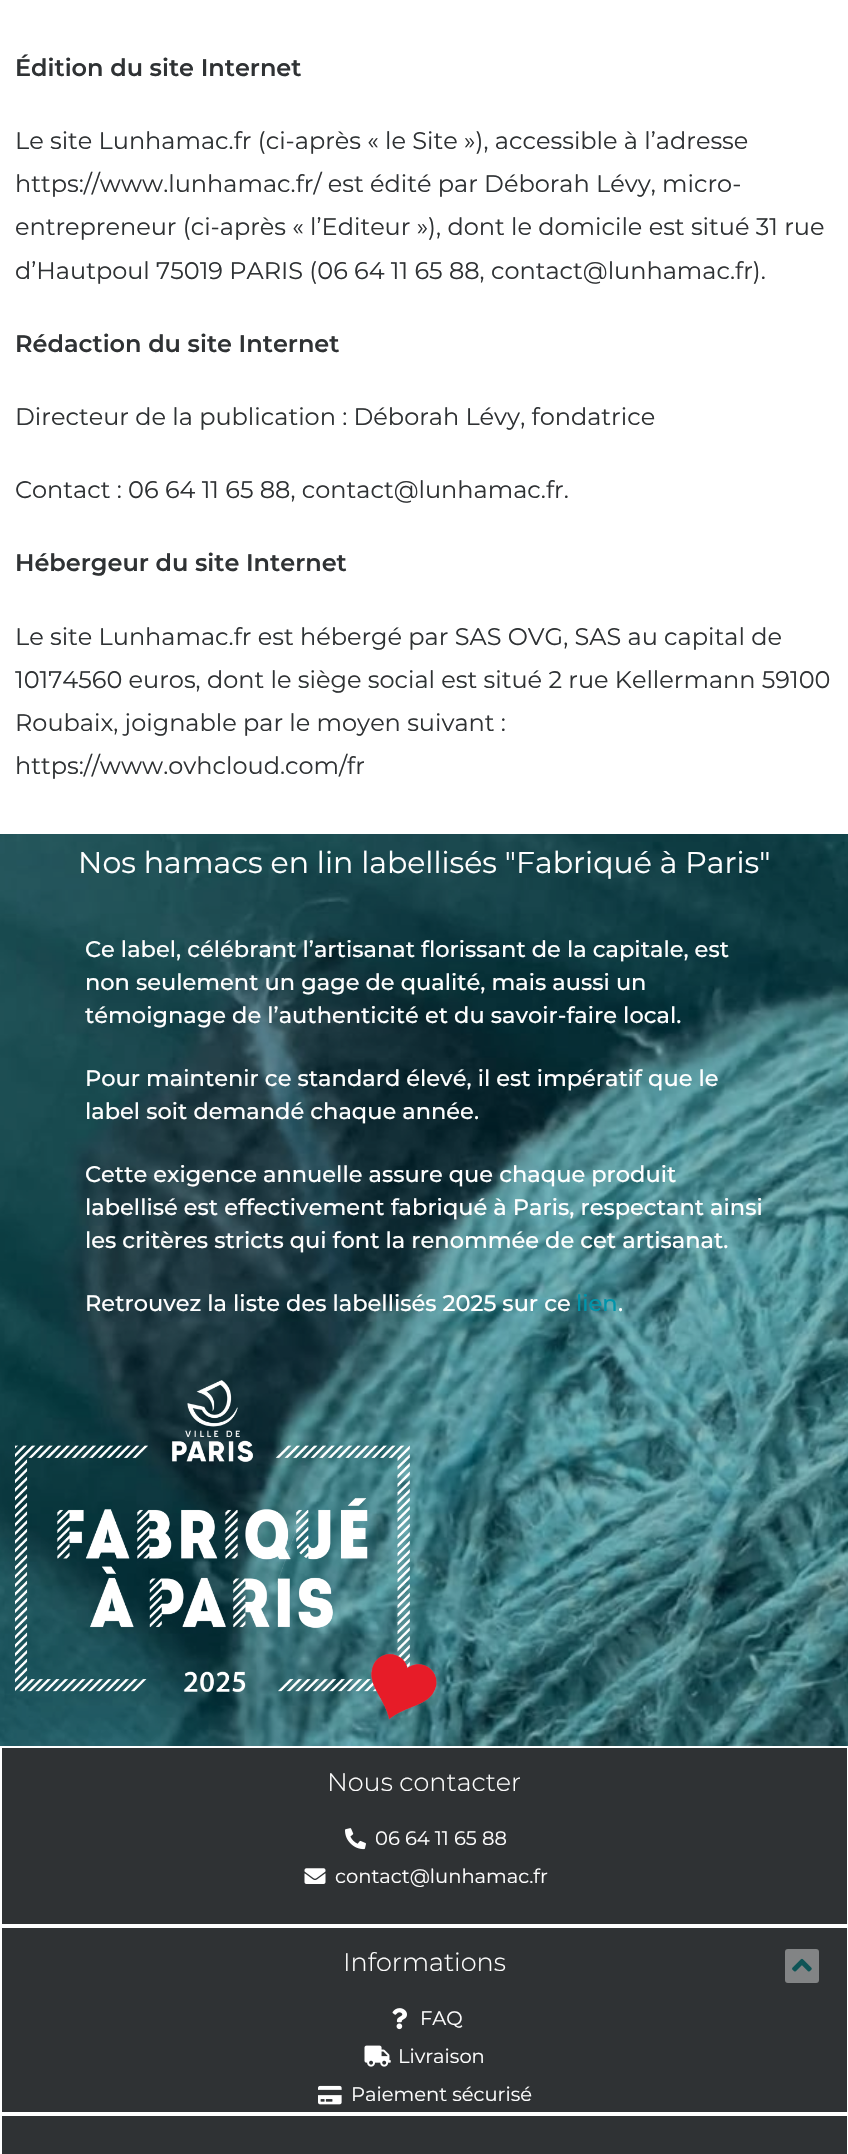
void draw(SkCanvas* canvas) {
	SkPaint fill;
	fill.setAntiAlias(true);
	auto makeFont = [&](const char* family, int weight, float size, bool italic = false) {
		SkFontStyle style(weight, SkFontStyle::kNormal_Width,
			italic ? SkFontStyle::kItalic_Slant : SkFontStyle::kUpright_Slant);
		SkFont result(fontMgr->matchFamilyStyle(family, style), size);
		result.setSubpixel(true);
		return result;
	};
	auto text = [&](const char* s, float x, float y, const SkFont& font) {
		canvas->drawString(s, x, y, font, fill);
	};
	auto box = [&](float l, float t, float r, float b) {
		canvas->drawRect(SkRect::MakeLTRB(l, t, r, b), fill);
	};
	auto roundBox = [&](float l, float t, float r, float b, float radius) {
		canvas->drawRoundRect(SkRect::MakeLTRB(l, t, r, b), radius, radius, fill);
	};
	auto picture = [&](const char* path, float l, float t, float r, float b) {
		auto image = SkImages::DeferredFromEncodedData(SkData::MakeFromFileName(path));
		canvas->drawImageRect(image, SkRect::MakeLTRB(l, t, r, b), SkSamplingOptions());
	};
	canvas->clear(0xFFFFFFFF);
	picture("image0.png", 0, 834, 848, 1746);
	picture("image1.png", 15, 1380, 437, 1720);
	fill.setColor(0xFF2F3234);
	box(2, 1748, 847, 1924);
	picture("image2.png", 345, 1828, 366, 1850);
	picture("image3.png", 304, 1868, 326, 1884);
	box(2, 1928, 847, 2112);
	picture("image4.png", 392, 2008, 407, 2030);
	picture("image5.png", 364, 2045, 391, 2067);
	picture("image6.png", 318, 2085, 342, 2105);
	box(2, 2116, 847, 2154);
	fill.setColor(0xFF828485);
	roundBox(785, 1949, 819, 1983, 3);
	picture("image7.png", 792, 1958, 812, 1972);
	auto font1 = makeFont("Montserrat", 600, 24);
	fill.setColor(0xFF2F3234);
	text("Édition du site Internet", 15, 76, font1);
	auto font2 = makeFont("Montserrat", 400, 24);
	text("Le site Lunhamac.fr (ci-après « le Site »), accessible à l’adresse", 15, 149, font2);
	text("https://www.lunhamac.fr/ est édité par Déborah Lévy, micro-", 15, 192, font2);
	text("entrepreneur (ci-après « l’Editeur »), dont le domicile est situé 31 rue", 15, 235, font2);
	text("d’Hautpoul 75019 PARIS (06 64 11 65 88, contact@lunhamac.fr).", 15, 279, font2);
	text("Rédaction du site Internet", 15, 352, font1);
	text("Directeur de la publication : Déborah Lévy, fondatrice", 15, 425, font2);
	text("Contact : 06 64 11 65 88, contact@lunhamac.fr.", 15, 498, font2);
	text("Hébergeur du site Internet", 15, 571, font1);
	text("Le site Lunhamac.fr est hébergé par SAS OVG, SAS au capital de", 15, 645, font2);
	text("10174560 euros, dont le siège social est situé 2 rue Kellermann 59100", 15, 688, font2);
	text("Roubaix, joignable par le moyen suivant :", 15, 731, font2);
	text("https://www.ovhcloud.com/fr", 15, 774, font2);
	auto font3 = makeFont("Montserrat", 400, 30);
	fill.setColor(0xFFFFFFFF);
	text("Nos hamacs en lin labellisés \"Fabriqué à Paris\"", 78, 873, font3);
	auto font4 = makeFont("Montserrat", 500, 22.5f);
	text("Ce label, célébrant l’artisanat florissant de la capitale, est", 85, 957, font4);
	text("non seulement un gage de qualité, mais aussi un", 85, 990, font4);
	text("témoignage de l’authenticité et du savoir-faire local.", 85, 1023, font4);
	text("Pour maintenir ce standard élevé, il est impératif que le", 85, 1086, font4);
	text("label soit demandé chaque année.", 85, 1119, font4);
	text("Cette exigence annuelle assure que chaque produit", 85, 1182, font4);
	text("labellisé est effectivement fabriqué à Paris, respectant ainsi", 85, 1215, font4);
	text("les critères stricts qui font la renommée de cet artisanat.", 85, 1248, font4);
	text("Retrouvez la liste des labellisés 2025 sur ce", 85, 1311, font4);
	fill.setColor(0xFF0094AA);
	text("lien", 576, 1311, font4);
	fill.setColor(0xFFFFFFFF);
	text(".", 618, 1311, font4);
	auto font5 = makeFont("Montserrat", 300, 25.5f);
	text("Nous contacter", 327, 1791, font5);
	auto font6 = makeFont("Montserrat", 400, 19.5f);
	text("06 64 11 65 88", 375, 1845, font6);
	text("contact@lunhamac.fr", 335, 1883, font6);
	text("Informations", 343, 1971, font5);
	text("FAQ", 420, 2025, font6);
	text("Livraison", 398, 2063, font6);
	text("Paiement sécurisé", 351, 2101, font6);
}
